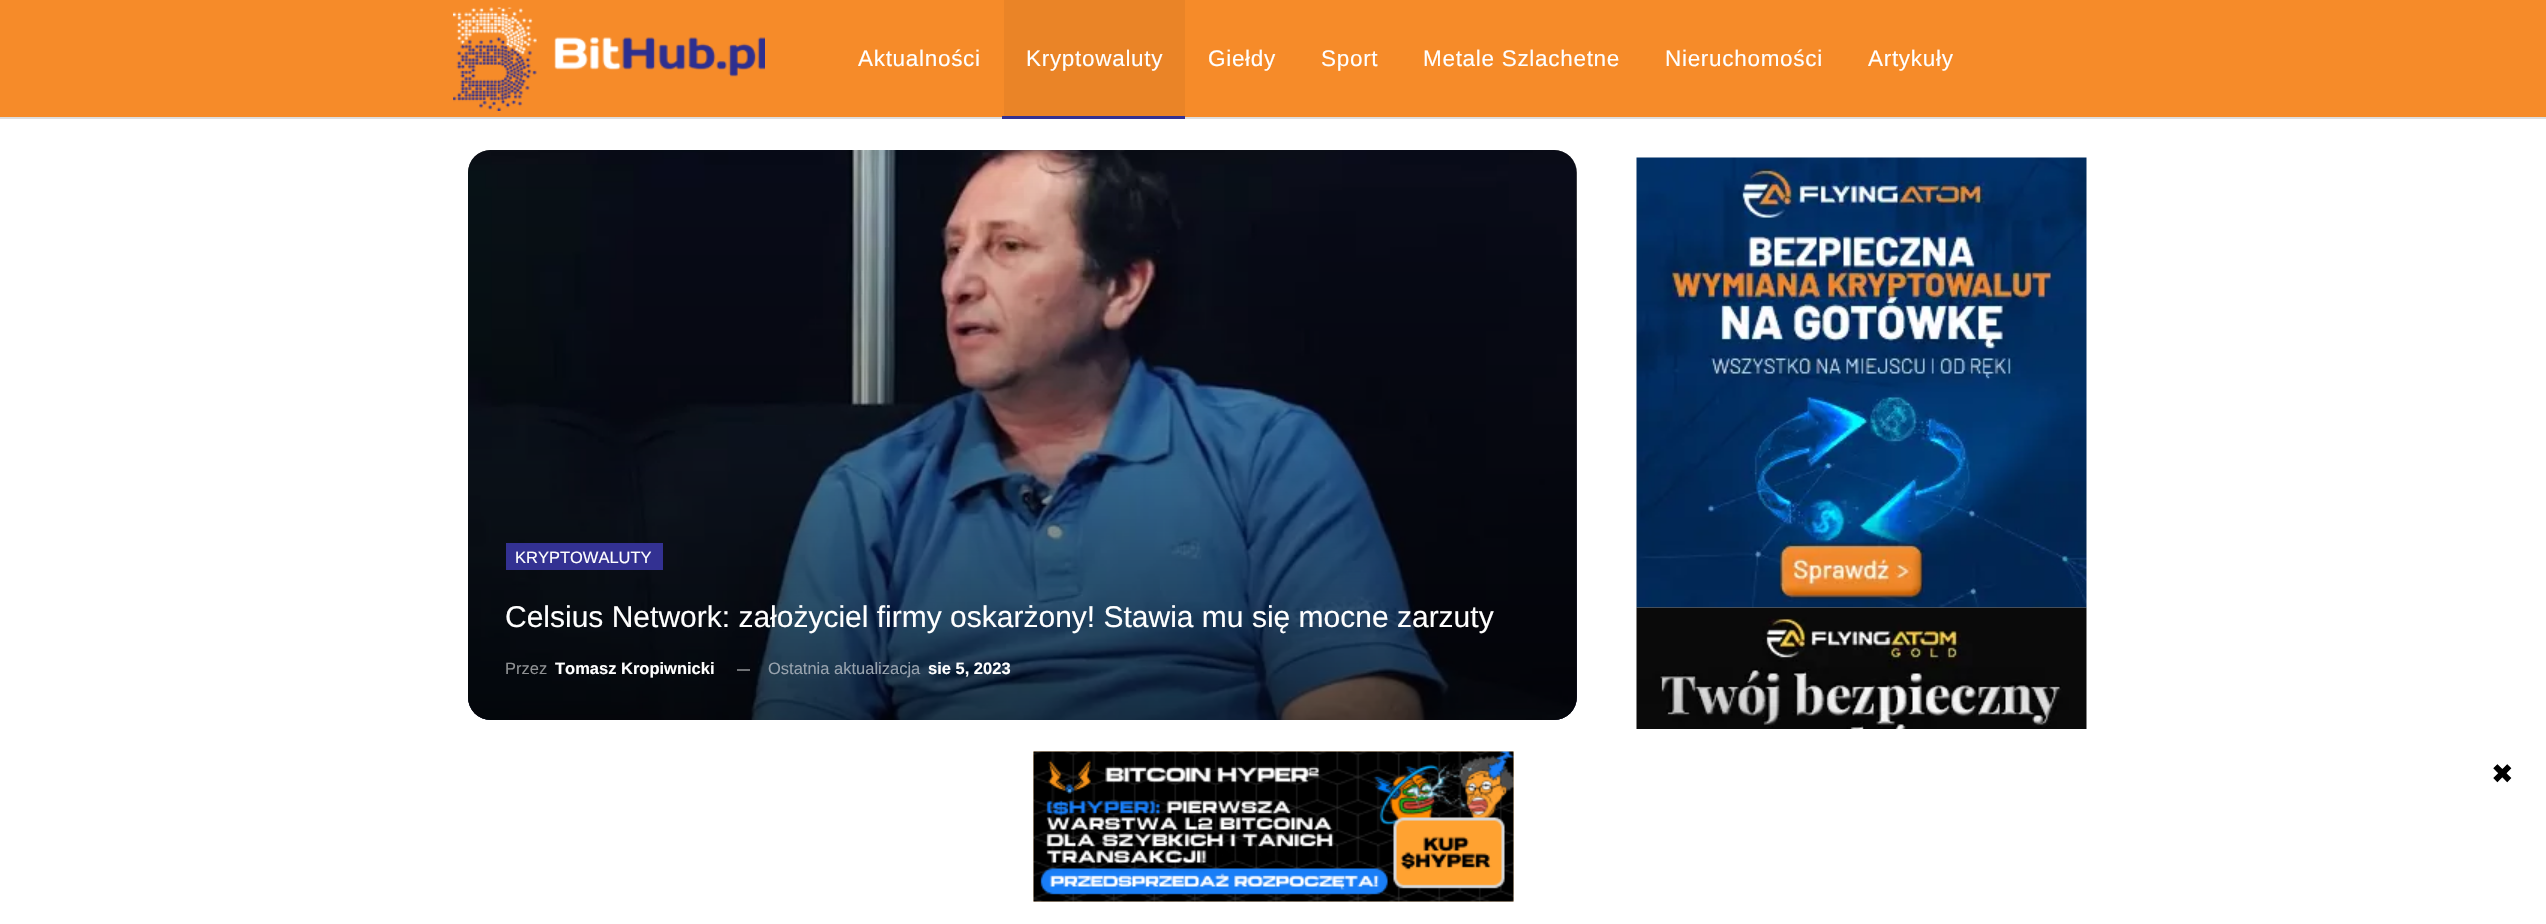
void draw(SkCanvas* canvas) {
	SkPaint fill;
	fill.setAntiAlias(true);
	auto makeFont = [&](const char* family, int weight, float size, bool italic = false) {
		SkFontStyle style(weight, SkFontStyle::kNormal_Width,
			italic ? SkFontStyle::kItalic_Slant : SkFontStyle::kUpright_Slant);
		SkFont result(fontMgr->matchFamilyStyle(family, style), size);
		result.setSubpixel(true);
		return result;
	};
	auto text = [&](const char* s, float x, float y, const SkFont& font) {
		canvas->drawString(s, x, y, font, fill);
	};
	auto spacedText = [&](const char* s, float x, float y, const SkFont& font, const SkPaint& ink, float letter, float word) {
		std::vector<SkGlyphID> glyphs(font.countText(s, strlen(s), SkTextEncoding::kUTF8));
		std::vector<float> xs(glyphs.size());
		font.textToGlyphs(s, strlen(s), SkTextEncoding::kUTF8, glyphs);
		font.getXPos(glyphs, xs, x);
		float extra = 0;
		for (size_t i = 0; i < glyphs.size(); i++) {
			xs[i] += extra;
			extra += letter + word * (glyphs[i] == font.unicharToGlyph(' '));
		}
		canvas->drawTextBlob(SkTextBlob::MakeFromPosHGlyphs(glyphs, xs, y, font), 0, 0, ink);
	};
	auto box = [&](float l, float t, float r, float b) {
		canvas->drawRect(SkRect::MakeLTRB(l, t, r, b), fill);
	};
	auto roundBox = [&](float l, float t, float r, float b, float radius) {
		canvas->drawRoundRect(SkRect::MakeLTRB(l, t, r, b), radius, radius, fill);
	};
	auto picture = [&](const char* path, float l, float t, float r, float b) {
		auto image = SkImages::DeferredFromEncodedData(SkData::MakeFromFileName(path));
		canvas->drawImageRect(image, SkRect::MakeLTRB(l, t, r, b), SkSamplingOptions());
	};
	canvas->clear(0xFFFFFFFF);
	fill.setColor(0xFFF68B29);
	box(0, 0, 2546, 117);
	fill.setColor(0xFFDEDEDE);
	box(0, 117, 2546, 119);
	picture("image0.png", 453, 7, 765, 111);
	fill.setColor(0xFFEA8427);
	box(1004, 0, 1185, 116);
	fill.setColor(0xFF333192);
	box(1002, 116, 1185, 119);
	fill.setColor(0xFF565656);
	roundBox(468, 150, 1577, 720, 23);
	{
		const SkColor colors[] = {0x0016163B, 0xE616163B};
		const float stops[] = {0, 1};
		const SkPoint ends[] = {{1022, 150}, {1022, 720}};
		fill.setShader(SkGradientShader::MakeLinear(ends, colors, stops, 2, SkTileMode::kClamp));
		fill.setAlpha(255);
	}
	roundBox(468, 150, 1577, 720, 23);
	picture("image1.png", 468, 150, 1577, 720);
	{
		const SkColor colors[] = {0xA6000000, 0x00000000};
		const float stops[] = {0, 1};
		const SkPoint ends[] = {{1022, 720}, {1022, 150}};
		fill.setShader(SkGradientShader::MakeLinear(ends, colors, stops, 2, SkTileMode::kClamp));
		fill.setAlpha(255);
	}
	roundBox(468, 150, 1577, 720, 23);
	fill.setShader(nullptr);
	fill.setColor(0xFF333192);
	box(506, 543, 663, 570);
	fill.setColor(0xFF707276);
	box(737, 669, 750, 671);
	picture("image2.png", 1636, 157, 2087, 608);
	picture("image3.png", 1636, 607, 2087, 729);
	picture("image4.png", 1033, 751, 1514, 902);
	picture("image5.png", 1033, 751, 1514, 902);
	auto font1 = makeFont("Liberation Sans", 400, 22.5f);
	fill.setColor(0xFFFFFFFF);
	spacedText("Aktualności", 858, 66, font1, fill, 0.7f, 0);
	spacedText("Kryptowaluty", 1026, 66, font1, fill, 0.7f, 0);
	spacedText("Giełdy", 1208, 66, font1, fill, 0.7f, 0);
	spacedText("Sport", 1321, 66, font1, fill, 0.7f, 0);
	spacedText("Metale Szlachetne", 1423, 66, font1, fill, 0.7f, 0);
	spacedText("Nieruchomości", 1665, 66, font1, fill, 0.7f, 0);
	spacedText("Artykuły", 1868, 66, font1, fill, 0.7f, 0);
	auto font2 = makeFont("Liberation Sans", 400, 16.5f);
	text("KRYPTOWALUTY", 515, 563, font2);
	auto font3 = makeFont("Liberation Sans", 400, 30);
	text("Celsius Network: założyciel firmy oskarżony! Stawia mu się mocne zarzuty", 505, 627, font3);
	fill.setColor(0xFF8E9092);
	text("Przez", 505, 674, font2);
	auto font4 = makeFont("Liberation Sans", 700, 16.5f);
	fill.setColor(0xFFFFFFFF);
	text("Tomasz Kropiwnicki", 555, 674, font4);
	fill.setColor(0xFF98A3AE);
	text("Ostatnia aktualizacja", 768, 674, font2);
	fill.setColor(0xFFFFFFFF);
	text("sie 5, 2023", 928, 674, font4);
	auto font5 = makeFont("DejaVu Sans", 400, 27);
	fill.setColor(0xFF000000);
	text("✖", 2491, 783, font5);
}
